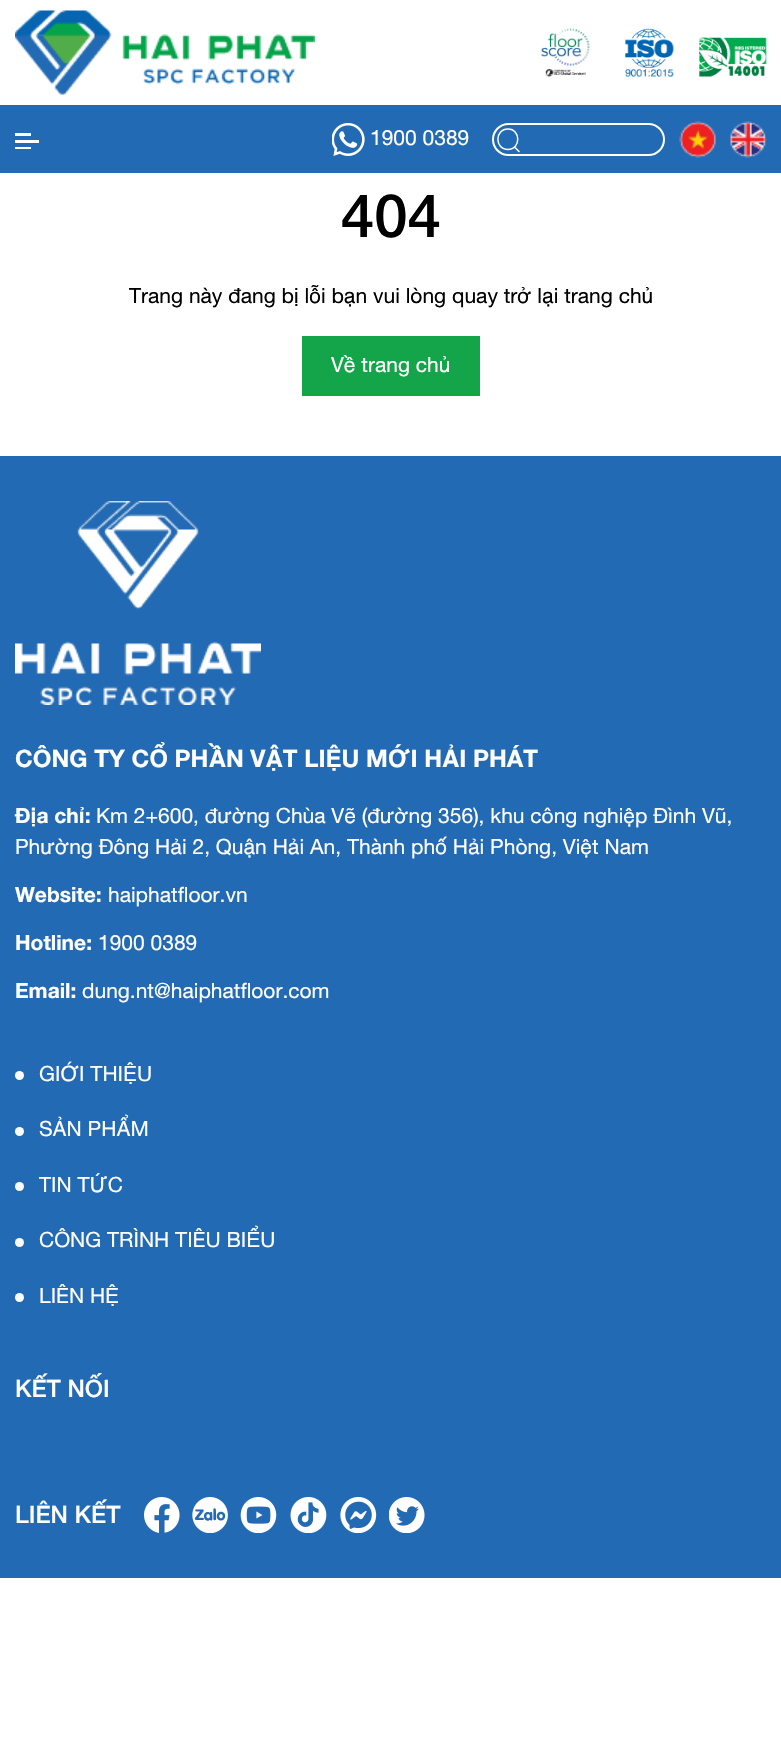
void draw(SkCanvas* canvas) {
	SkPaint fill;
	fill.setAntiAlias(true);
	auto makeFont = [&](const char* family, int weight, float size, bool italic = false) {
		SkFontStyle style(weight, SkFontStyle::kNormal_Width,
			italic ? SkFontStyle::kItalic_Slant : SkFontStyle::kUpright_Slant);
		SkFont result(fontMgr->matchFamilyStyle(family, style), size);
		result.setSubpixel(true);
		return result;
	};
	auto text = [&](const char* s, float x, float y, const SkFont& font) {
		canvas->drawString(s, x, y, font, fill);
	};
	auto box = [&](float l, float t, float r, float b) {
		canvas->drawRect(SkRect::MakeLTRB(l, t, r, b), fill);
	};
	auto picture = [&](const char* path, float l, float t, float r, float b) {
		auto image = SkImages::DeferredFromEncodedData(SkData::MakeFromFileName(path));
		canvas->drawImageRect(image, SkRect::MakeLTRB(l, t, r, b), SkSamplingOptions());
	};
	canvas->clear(0xFFFFFFFF);
	picture("image0.png", 15, 10, 315, 95);
	picture("image1.png", 541, 28, 767, 77);
	fill.setColor(0xFF236AB4);
	box(0, 105, 781, 173);
	fill.setColor(0xFFFFFFFF);
	box(15, 133, 31, 136);
	box(15, 140, 39, 143);
	box(15, 147, 31, 149);
	picture("image2.png", 332, 123, 365, 156);
	fill.setStyle(SkPaint::kStroke_Style);
	fill.setStrokeWidth(2);
	canvas->drawRoundRect(SkRect::MakeLTRB(493, 124, 664, 155), 15.5f, 15.5f, fill);
	fill.setStrokeWidth(1.5f);
	fill.setStrokeCap(SkPaint::kRound_Cap);
	canvas->drawPath(SkPathBuilder().moveTo(508, 149.5f).cubicTo(521, 149.5f, 521, 129, 508, 129).cubicTo(494.5f, 129, 494.5f, 149.5f, 508, 149.5f).close().moveTo(519, 151.5f).lineTo(515, 147.5f).detach(), fill);
	picture("image3.png", 679, 121, 716, 158);
	picture("image4.png", 730, 121, 767, 158);
	fill.setStyle(SkPaint::kFill_Style);
	fill.setColor(0xFF14A54A);
	box(302, 336, 480, 396);
	fill.setColor(0xFF236AB4);
	box(0, 456, 781, 1578);
	picture("image5.png", 15, 501, 261, 705);
	fill.setColor(0xFFFFFFFF);
	canvas->drawCircle(19.5f, 1075.5f, 4.5f, fill);
	canvas->drawCircle(19.5f, 1131.5f, 4.5f, fill);
	canvas->drawCircle(19.5f, 1186.5f, 4.5f, fill);
	canvas->drawCircle(19.5f, 1242.5f, 4.5f, fill);
	canvas->drawCircle(19.5f, 1297.5f, 4.5f, fill);
	picture("image6.png", 144, 1497, 180, 1533);
	picture("image7.png", 192, 1497, 228, 1533);
	picture("image8.png", 240, 1497, 277, 1533);
	picture("image9.png", 290, 1497, 327, 1533);
	picture("image10.png", 340, 1497, 377, 1533);
	picture("image11.png", 389, 1497, 425, 1533);
	auto font1 = makeFont("Helvetica Neue", 400, 21);
	text("1900 0389", 370, 145, font1);
	auto font2 = makeFont("Helvetica Neue", 500, 60);
	fill.setColor(0xFF000000);
	text("404", 341, 237, font2);
	text("Trang này đang bị lỗi bạn vui lòng quay trở lại trang chủ", 129, 303, font1);
	fill.setColor(0xFFFFFFFF);
	text("Về trang chủ", 331, 372, font1);
	auto font3 = makeFont("Helvetica Neue", 700, 24);
	text("CÔNG TY CỔ PHẦN VẬT LIỆU MỚI HẢI PHÁT", 15, 767, font3);
	auto font4 = makeFont("Helvetica Neue", 700, 21);
	text("Địa chỉ:", 15, 823, font4);
	text("Km 2+600, đường Chùa Vẽ (đường 356), khu công nghiệp Đình Vũ,", 96, 823, font1);
	text("Phường Đông Hải 2, Quận Hải An, Thành phố Hải Phòng, Việt Nam", 15, 854, font1);
	text("Website:", 15, 902, font4);
	text("haiphatfloor.vn", 108, 902, font1);
	text("Hotline:", 15, 950, font4);
	text("1900 0389", 98, 950, font1);
	text("Email:", 15, 998, font4);
	text("dung.nt@haiphatfloor.com", 82, 998, font1);
	text("GIỚI THIỆU", 39, 1081, font1);
	text("SẢN PHẨM", 39, 1136, font1);
	text("TIN TỨC", 39, 1192, font1);
	text("CÔNG TRÌNH TIÊU BIỂU", 39, 1247, font1);
	text("LIÊN HỆ", 39, 1303, font1);
	auto font5 = makeFont("Helvetica Neue", 500, 24);
	text("KẾT NỐI", 15, 1397, font5);
	text("LIÊN KẾT", 15, 1523, font5);
}
